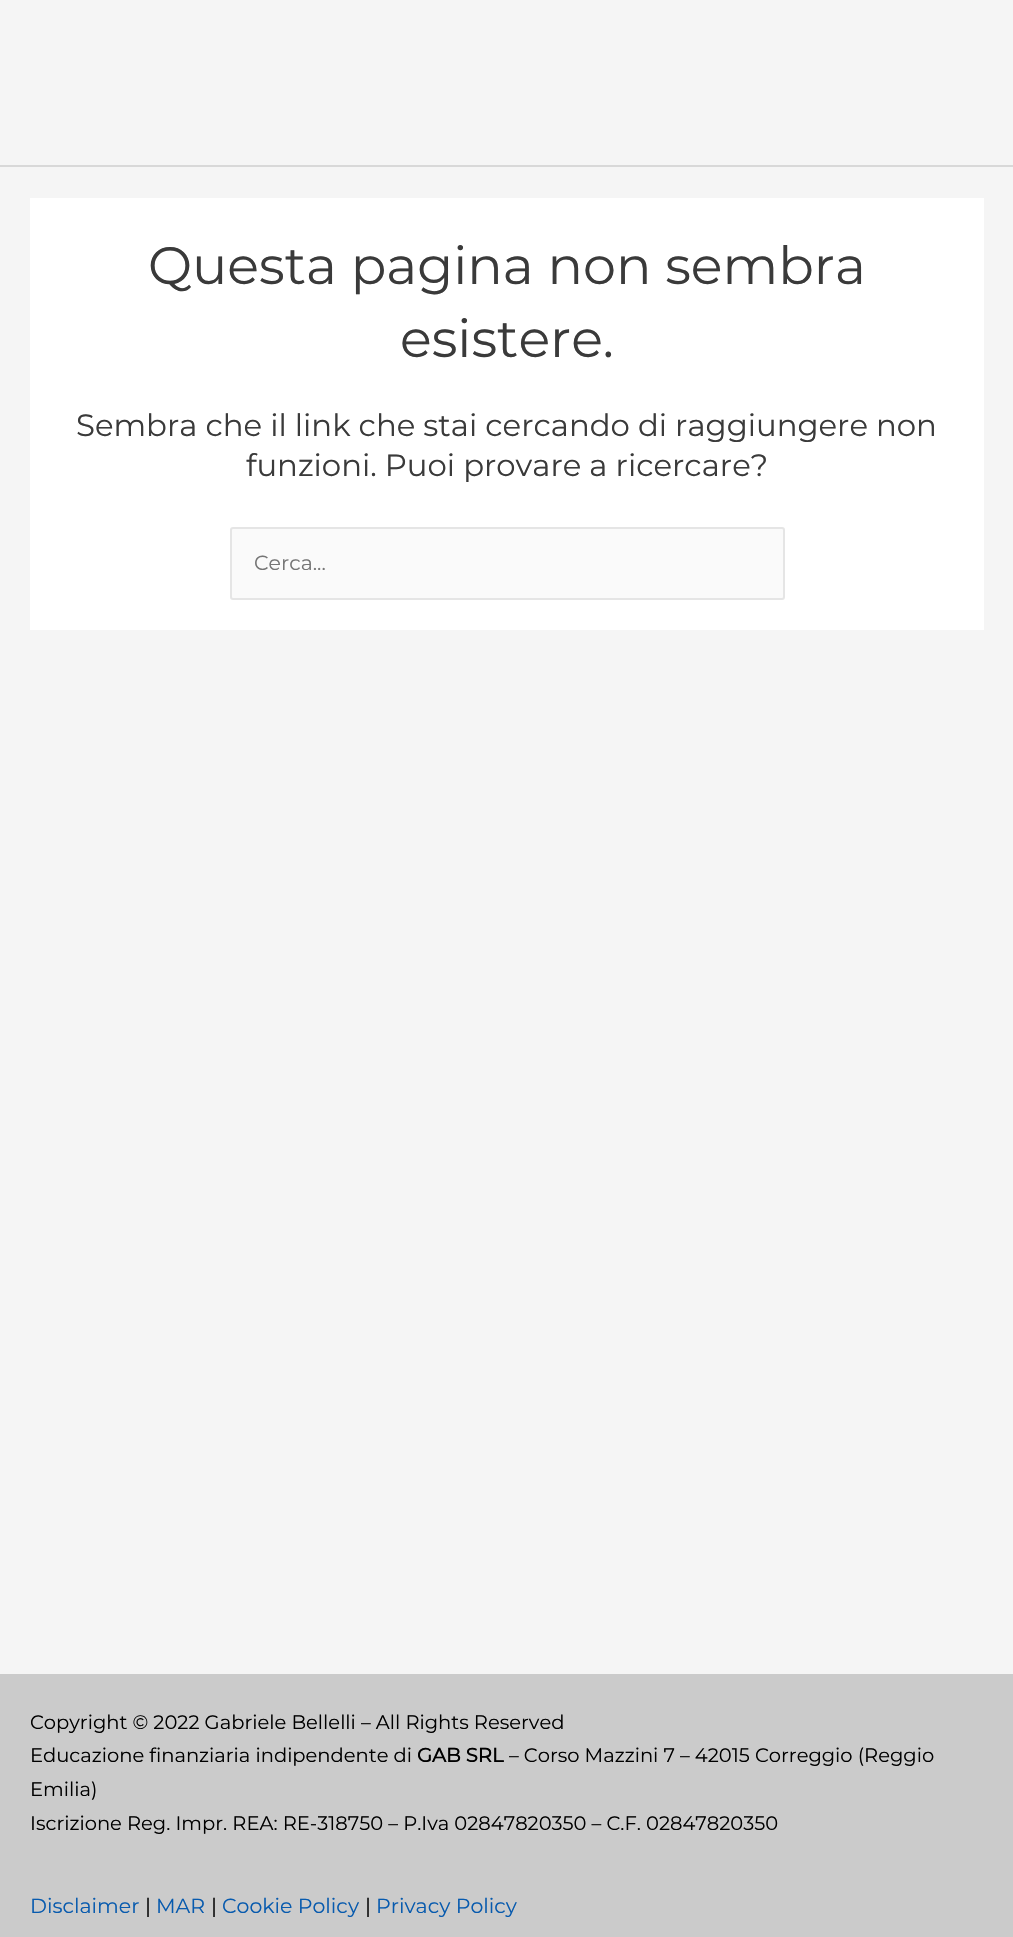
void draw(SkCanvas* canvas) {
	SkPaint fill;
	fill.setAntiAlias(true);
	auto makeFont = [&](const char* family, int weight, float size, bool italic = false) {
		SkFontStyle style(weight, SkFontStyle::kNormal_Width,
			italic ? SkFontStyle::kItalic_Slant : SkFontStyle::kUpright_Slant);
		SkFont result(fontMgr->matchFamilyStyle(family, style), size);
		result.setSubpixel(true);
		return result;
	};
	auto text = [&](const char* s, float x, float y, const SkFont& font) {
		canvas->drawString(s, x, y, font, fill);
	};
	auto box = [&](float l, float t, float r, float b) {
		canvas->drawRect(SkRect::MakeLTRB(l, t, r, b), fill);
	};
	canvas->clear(0xFFF5F5F5);
	fill.setColor(0xFFD8D8D8);
	box(0, 165, 1013, 167);
	fill.setColor(0xFFFFFFFF);
	box(30, 198, 984, 630);
	fill.setColor(0xFFFAFAFA);
	canvas->drawRoundRect(SkRect::MakeLTRB(231, 528, 784, 599), 2, 2, fill);
	fill.setStyle(SkPaint::kStroke_Style);
	fill.setStrokeWidth(2);
	fill.setColor(0xFFE5E5E5);
	canvas->drawRoundRect(SkRect::MakeLTRB(231, 528, 784, 599), 2, 2, fill);
	fill.setStyle(SkPaint::kFill_Style);
	fill.setColor(0xFFCBCBCB);
	box(0, 1674, 1013, 1937);
	auto font1 = makeFont("Montserrat", 400, 52.5f);
	fill.setColor(0xFF3A3A3A);
	text("Questa pagina non sembra", 148, 284, font1);
	text("esistere.", 400, 357, font1);
	auto font2 = makeFont("Montserrat", 400, 30.75f);
	text("Sembra che il link che stai cercando di raggiungere non", 76, 436, font2);
	text("funzioni. Puoi provare a ricercare?", 246, 476, font2);
	auto font3 = makeFont("Montserrat", 400, 20.5f);
	fill.setColor(0xFF757575);
	text("Cerca...", 254, 570, font3);
	auto font4 = makeFont("Montserrat", 400, 19.5f);
	fill.setColor(0xFF000000);
	text("Copyright © 2022 Gabriele Bellelli – All Rights Reserved", 30, 1729, font4);
	text("Educazione finanziaria indipendente di", 30, 1762, font4);
	auto font5 = makeFont("Montserrat", 700, 19.5f);
	text("GAB SRL", 417, 1762, font5);
	text("– Corso Mazzini 7 – 42015 Correggio (Reggio", 509, 1762, font4);
	text("Emilia)", 30, 1796, font4);
	text("Iscrizione Reg. Impr. REA: RE-318750 – P.Iva 02847820350 – C.F. 02847820350", 30, 1830, font4);
	fill.setColor(0xFF075AAE);
	text("Disclaimer", 30, 1913, font3);
	fill.setColor(0xFF000000);
	text("|", 145, 1913, font3);
	fill.setColor(0xFF075AAE);
	text("MAR", 156, 1913, font3);
	fill.setColor(0xFF000000);
	text("|", 211, 1913, font3);
	fill.setColor(0xFF075AAE);
	text("Cookie Policy", 222, 1913, font3);
	fill.setColor(0xFF000000);
	text("|", 365, 1913, font3);
	fill.setColor(0xFF075AAE);
	text("Privacy Policy", 376, 1913, font3);
}
